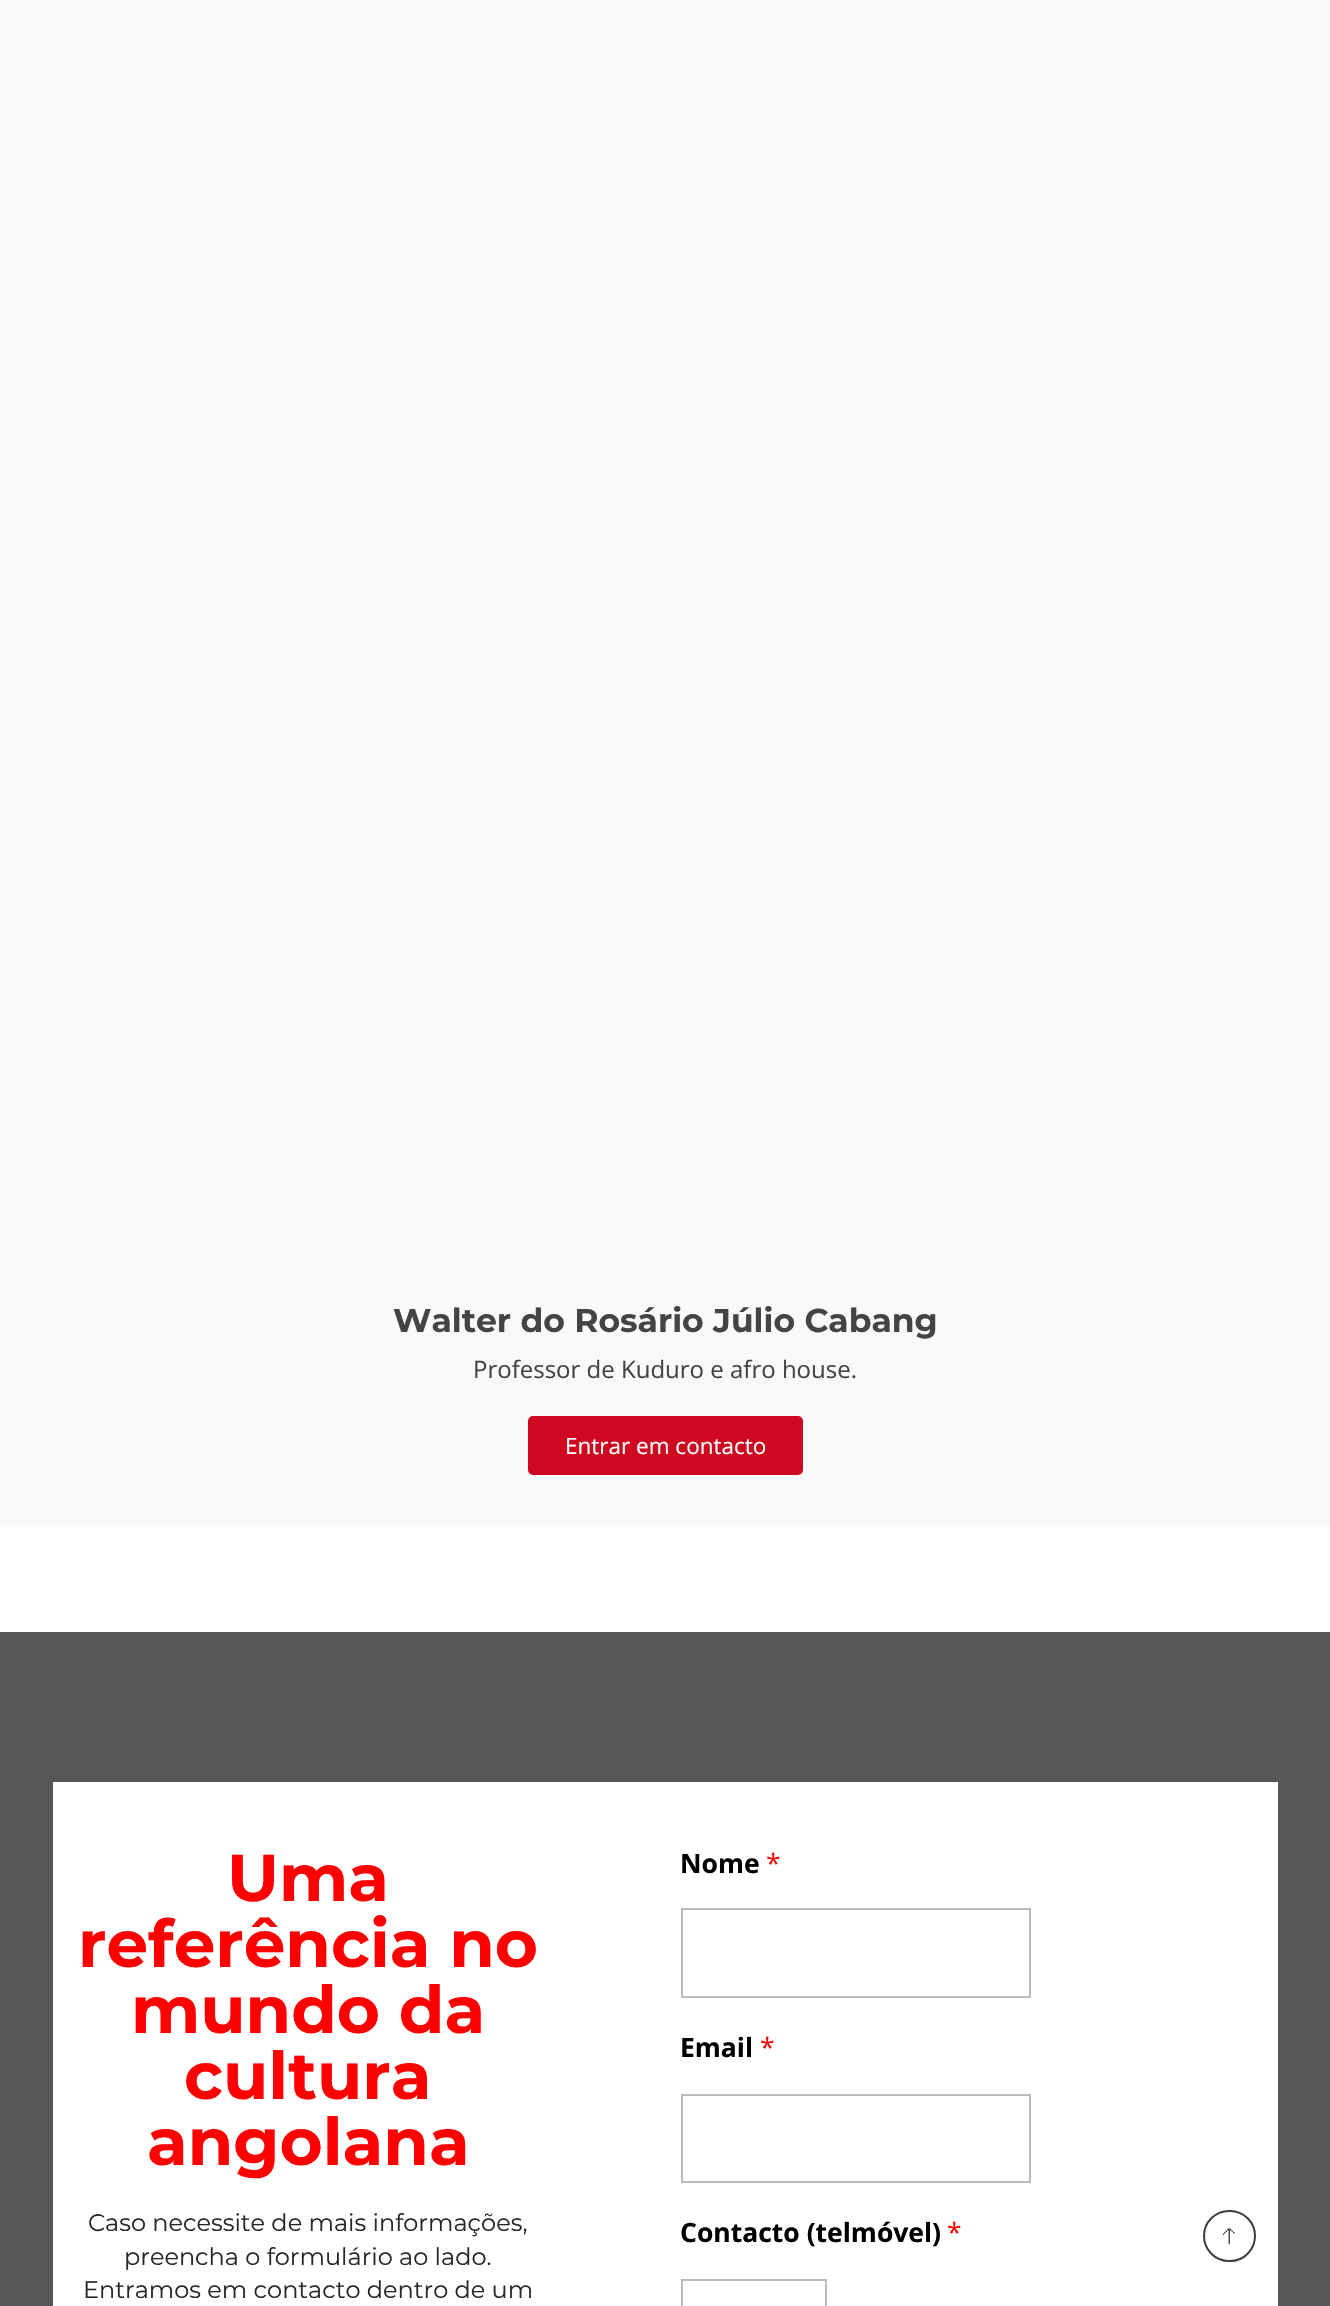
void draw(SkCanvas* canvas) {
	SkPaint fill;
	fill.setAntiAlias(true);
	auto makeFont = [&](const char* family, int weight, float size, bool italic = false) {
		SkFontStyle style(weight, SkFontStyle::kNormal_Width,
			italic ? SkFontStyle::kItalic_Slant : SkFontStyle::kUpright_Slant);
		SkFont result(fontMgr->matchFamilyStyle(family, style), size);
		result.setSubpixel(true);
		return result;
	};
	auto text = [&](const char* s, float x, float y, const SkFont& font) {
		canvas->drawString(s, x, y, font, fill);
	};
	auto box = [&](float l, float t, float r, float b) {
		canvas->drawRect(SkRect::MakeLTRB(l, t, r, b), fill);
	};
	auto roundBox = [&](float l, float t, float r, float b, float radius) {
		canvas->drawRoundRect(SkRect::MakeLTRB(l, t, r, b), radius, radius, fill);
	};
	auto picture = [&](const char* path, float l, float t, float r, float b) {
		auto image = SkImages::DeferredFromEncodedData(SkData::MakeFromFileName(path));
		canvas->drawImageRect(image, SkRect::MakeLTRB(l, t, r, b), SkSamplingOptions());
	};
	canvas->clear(0xFFFFFFFF);
	fill.setColor(0xFFF9F9F9);
	box(0, 0, 1330, 1527);
	fill.setColor(0xFFCF0821);
	roundBox(528, 1416, 803, 1475, 5);
	fill.setColor(0xFF575757);
	box(0, 1632, 1330, 2306);
	fill.setColor(0xFFFFFFFF);
	box(53, 1782, 1278, 2306);
	fill.setStyle(SkPaint::kStroke_Style);
	fill.setStrokeWidth(2);
	fill.setColor(0xFFBBBBBB);
	canvas->drawRect(SkRect::MakeLTRB(682, 1909, 1030, 1997), fill);
	canvas->drawRect(SkRect::MakeLTRB(682, 2095, 1030, 2182), fill);
	canvas->drawRect(SkRect::MakeLTRB(682, 2280, 826, 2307), fill);
	fill.setColor(0xFF3D3D3D);
	canvas->drawRoundRect(SkRect::MakeLTRB(1204, 2211, 1255, 2261), 25, 25, fill);
	picture("image0.png", 1223, 2228, 1235, 2244);
	auto font1 = makeFont("Montserrat", 700, 33);
	fill.setStyle(SkPaint::kFill_Style);
	fill.setColor(0xFF444444);
	text("Walter do Rosário Júlio Cabang", 393, 1332, font1);
	auto font2 = makeFont("Open Sans", 400, 24);
	text("Professor de Kuduro e afro house.", 473, 1378, font2);
	auto font3 = makeFont("Open Sans", 400, 22.5f);
	fill.setColor(0xFFFFFFFF);
	text("Entrar em contacto", 565, 1454, font3);
	auto font4 = makeFont("Montserrat", 700, 66);
	fill.setColor(0xFFFF0000);
	text("Uma", 227, 1901, font4);
	text("referência no", 78, 1967, font4);
	text("mundo da", 131, 2033, font4);
	text("cultura", 184, 2099, font4);
	text("angolana", 147, 2165, font4);
	auto font5 = makeFont("Montserrat", 400, 24);
	fill.setColor(0xFF272727);
	text("Caso necessite de mais informações,", 88, 2231, font5);
	text("preencha o formulário ao lado.", 124, 2265, font5);
	text("Entramos em contacto dentro de um", 83, 2298, font5);
	auto font6 = makeFont("Open Sans", 700, 26.5f);
	fill.setColor(0xFF000000);
	text("Nome", 680, 1873, font6);
	auto font7 = makeFont("Open Sans", 400, 26.5f);
	fill.setColor(0xFFFF0000);
	text("*", 766, 1873, font7);
	fill.setColor(0xFF000000);
	text("Email", 680, 2057, font6);
	fill.setColor(0xFFFF0000);
	text("*", 760, 2057, font7);
	fill.setColor(0xFF000000);
	text("Contacto (telmóvel)", 680, 2242, font6);
	fill.setColor(0xFFFF0000);
	text("*", 947, 2242, font7);
}
